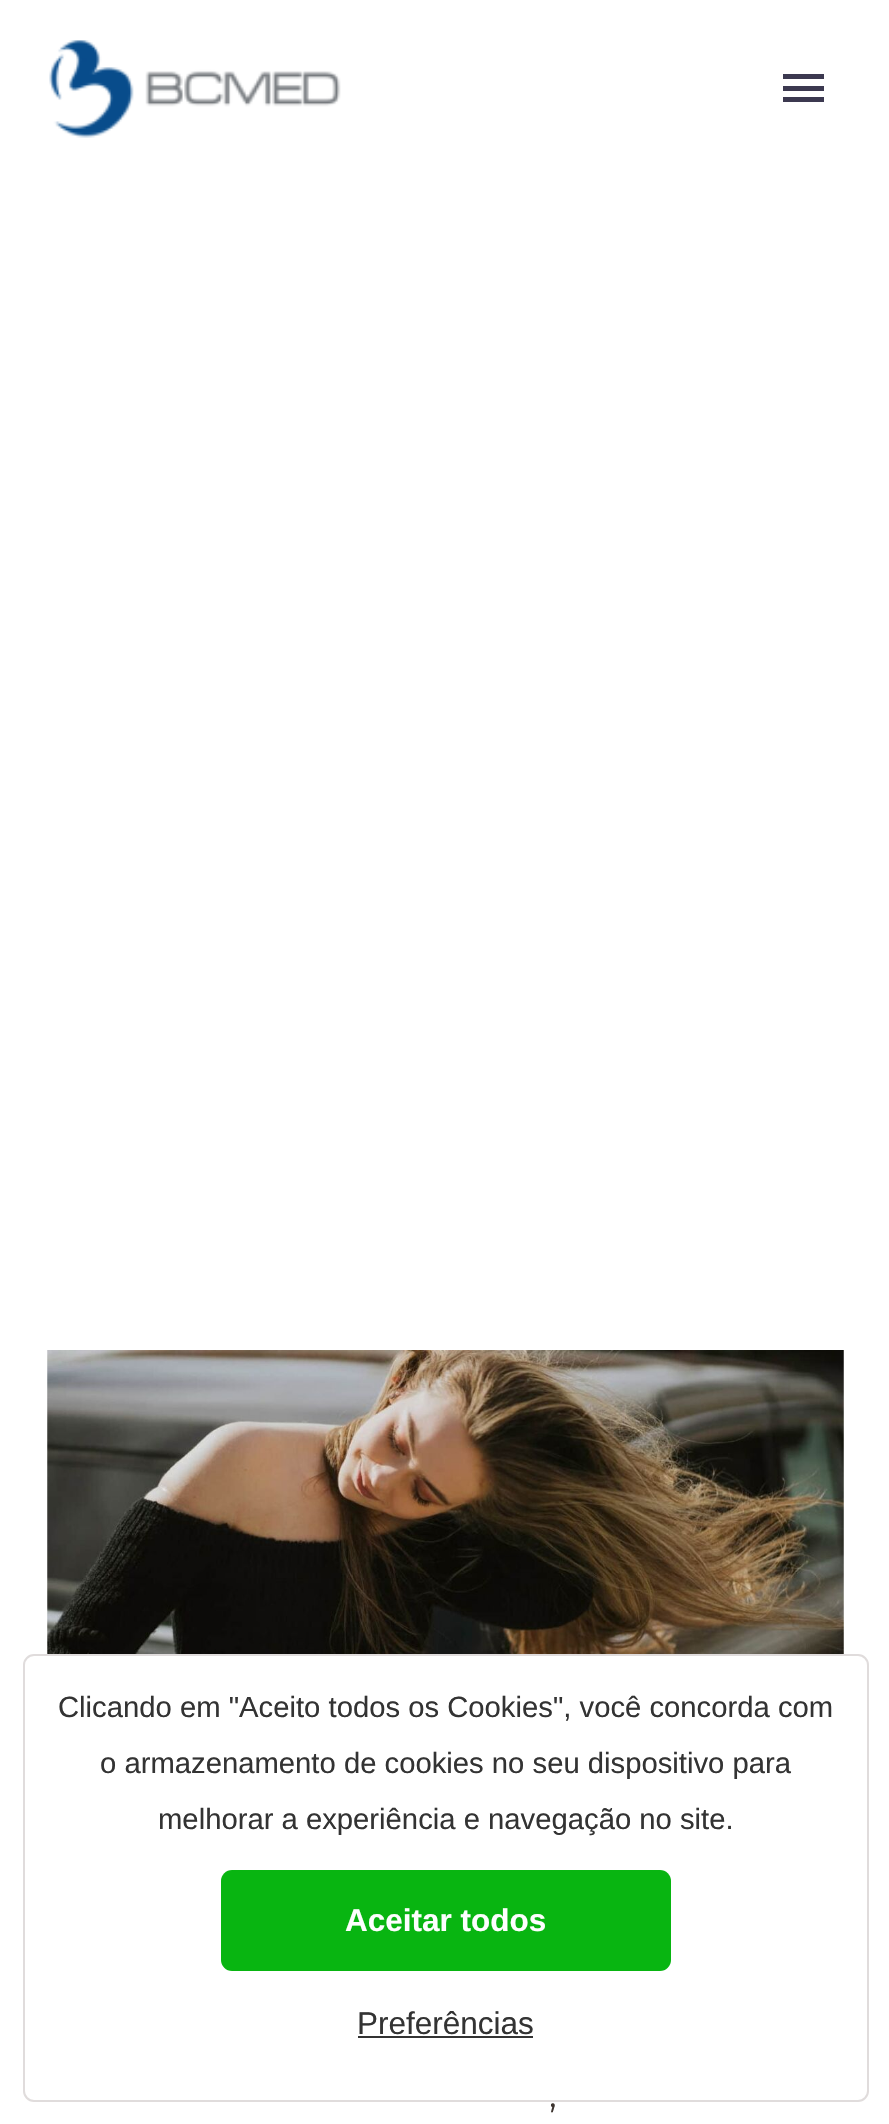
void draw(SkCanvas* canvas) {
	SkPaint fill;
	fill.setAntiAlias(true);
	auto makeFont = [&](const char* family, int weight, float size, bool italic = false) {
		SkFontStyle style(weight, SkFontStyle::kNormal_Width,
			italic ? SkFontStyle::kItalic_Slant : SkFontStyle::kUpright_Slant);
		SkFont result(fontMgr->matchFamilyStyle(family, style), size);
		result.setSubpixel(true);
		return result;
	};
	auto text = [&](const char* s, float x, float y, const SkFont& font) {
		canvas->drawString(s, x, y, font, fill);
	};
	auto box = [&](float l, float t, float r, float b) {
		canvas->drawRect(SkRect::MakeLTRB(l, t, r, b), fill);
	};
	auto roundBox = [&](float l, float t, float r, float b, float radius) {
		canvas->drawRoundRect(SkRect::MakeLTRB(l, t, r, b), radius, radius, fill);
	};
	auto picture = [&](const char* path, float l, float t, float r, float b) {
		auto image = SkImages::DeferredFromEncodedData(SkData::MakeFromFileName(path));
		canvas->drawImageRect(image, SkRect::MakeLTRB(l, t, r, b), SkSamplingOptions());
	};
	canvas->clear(0xFFFFFFFF);
	fill.setStyle(SkPaint::kStroke_Style);
	fill.setStrokeWidth(2);
	fill.setColor(0xFFE0DCDC);
	canvas->drawRoundRect(SkRect::MakeLTRB(24, 1655, 868, 2101), 10, 10, fill);
	fill.setStyle(SkPaint::kFill_Style);
	fill.setColor(0xFF08B511);
	roundBox(221, 1870, 671, 1971, 11);
	fill.setColor(0xFF333333);
	box(358, 2036, 533, 2038);
	picture("image0.png", 49, 40, 341, 138);
	fill.setColor(0xFF3C3950);
	box(783, 74, 824, 79);
	box(783, 86, 824, 91);
	box(783, 97, 824, 102);
	picture("image1.png", 47, 1350, 844, 1654);
	auto font1 = makeFont("Liberation Sans", 400, 29.25f);
	fill.setColor(0xFF333333);
	text("Clicando em \"Aceito todos os Cookies\", você concorda com", 58, 1717, font1);
	text("o armazenamento de cookies no seu dispositivo para", 100, 1773, font1);
	text("melhorar a experiência e navegação no site.", 158, 1829, font1);
	auto font2 = makeFont("Liberation Sans", 700, 31.5f);
	fill.setColor(0xFFFEFEFE);
	text("Aceitar todos", 345, 1931, font2);
	auto font3 = makeFont("Liberation Sans", 400, 31.5f);
	fill.setColor(0xFF333333);
	text("Preferências", 357, 2034, font3);
	auto font4 = makeFont("Montserrat", 400, 36);
	fill.setColor(0xFF3D342F);
	text(",", 549, 2107, font4);
}
